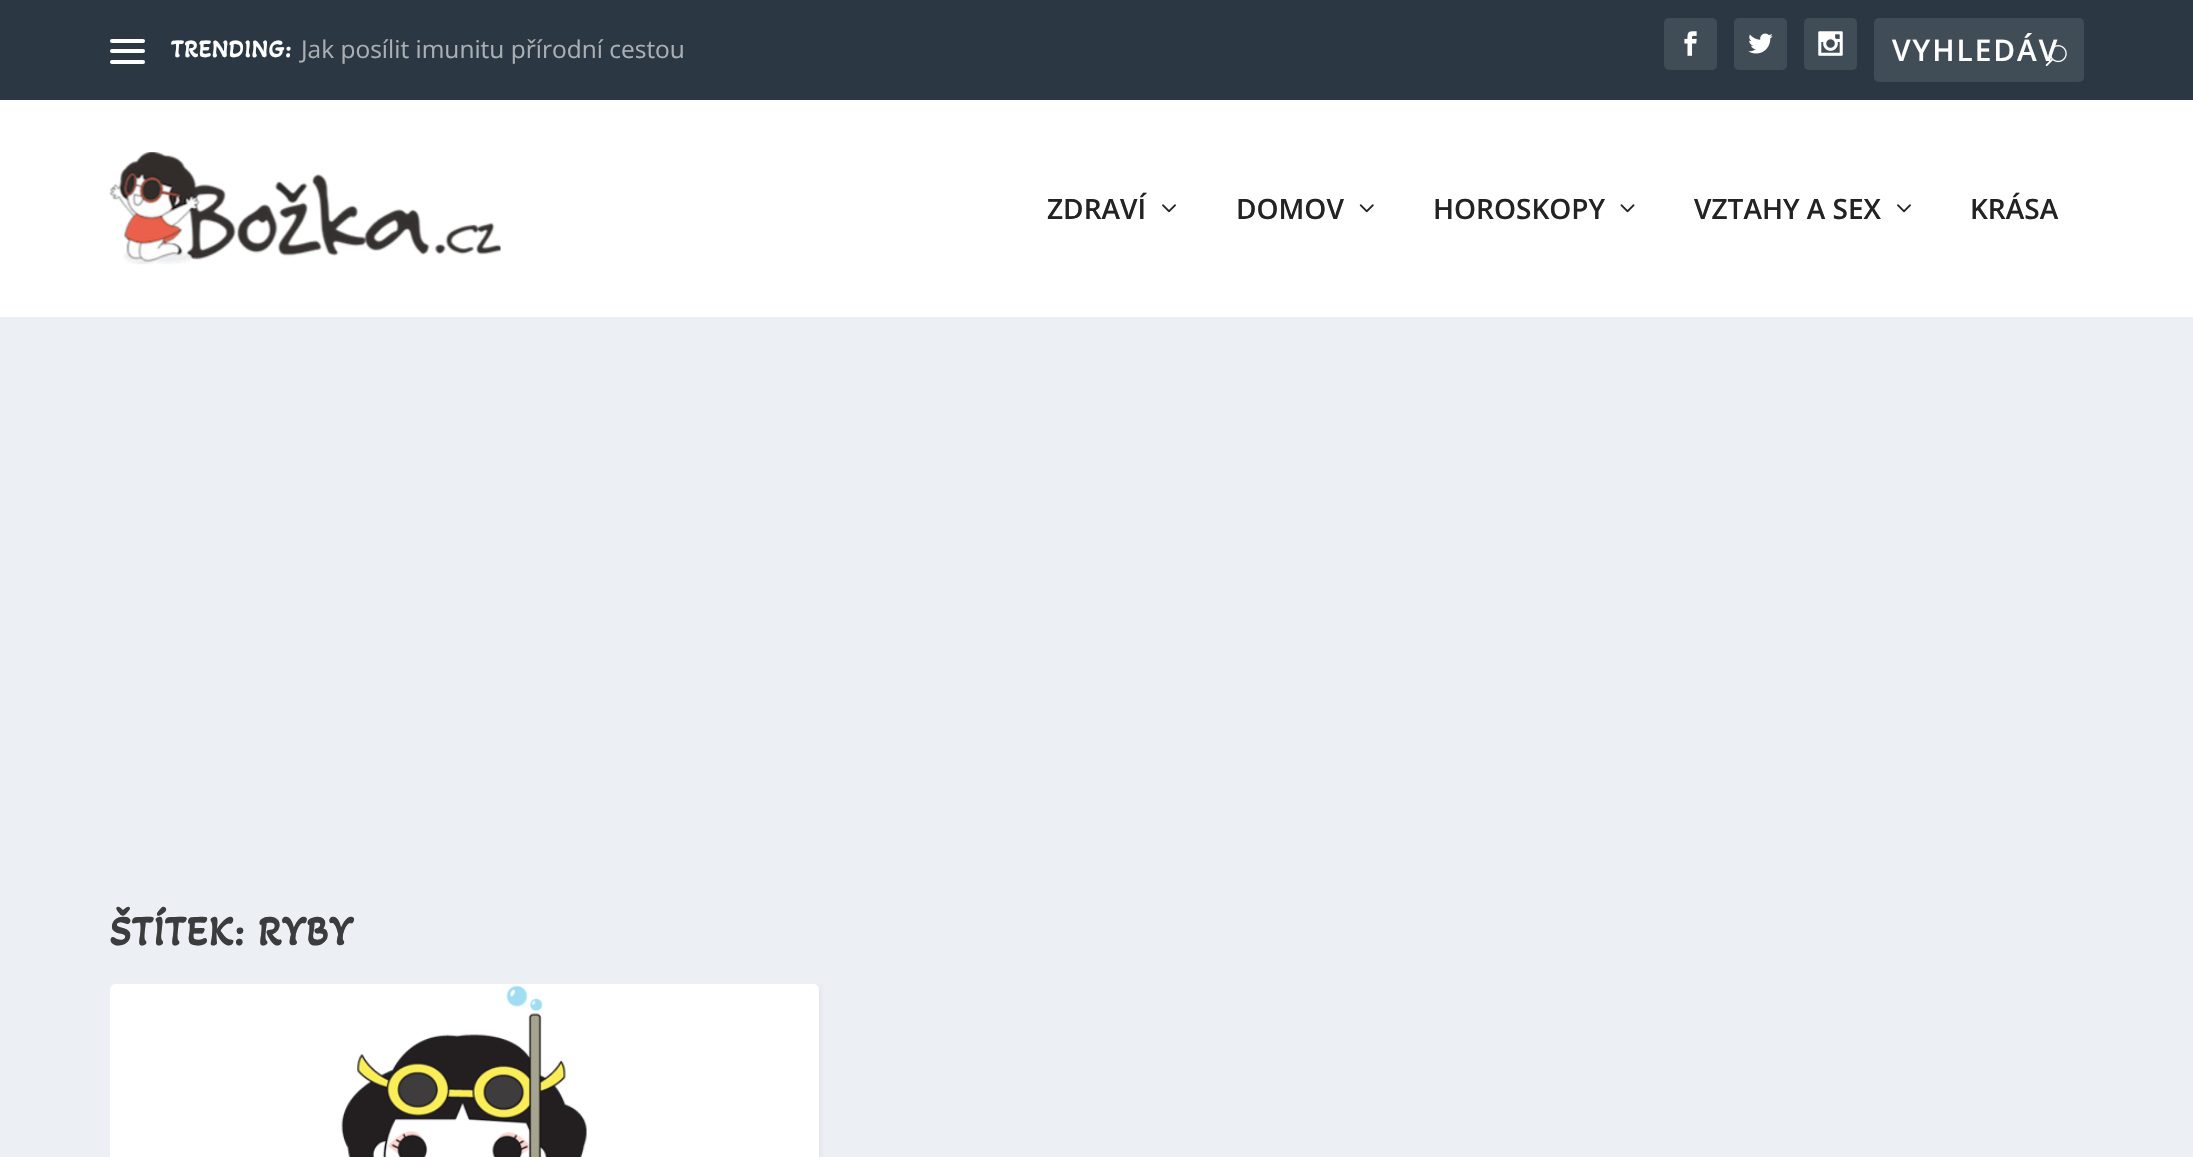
void draw(SkCanvas* canvas) {
	SkPaint fill;
	fill.setAntiAlias(true);
	auto makeFont = [&](const char* family, int weight, float size, bool italic = false) {
		SkFontStyle style(weight, SkFontStyle::kNormal_Width,
			italic ? SkFontStyle::kItalic_Slant : SkFontStyle::kUpright_Slant);
		SkFont result(fontMgr->matchFamilyStyle(family, style), size);
		result.setSubpixel(true);
		return result;
	};
	auto text = [&](const char* s, float x, float y, const SkFont& font) {
		canvas->drawString(s, x, y, font, fill);
	};
	auto spacedText = [&](const char* s, float x, float y, const SkFont& font, const SkPaint& ink, float letter, float word) {
		std::vector<SkGlyphID> glyphs(font.countText(s, strlen(s), SkTextEncoding::kUTF8));
		std::vector<float> xs(glyphs.size());
		font.textToGlyphs(s, strlen(s), SkTextEncoding::kUTF8, glyphs);
		font.getXPos(glyphs, xs, x);
		float extra = 0;
		for (size_t i = 0; i < glyphs.size(); i++) {
			xs[i] += extra;
			extra += letter + word * (glyphs[i] == font.unicharToGlyph(' '));
		}
		canvas->drawTextBlob(SkTextBlob::MakeFromPosHGlyphs(glyphs, xs, y, font), 0, 0, ink);
	};
	auto box = [&](float l, float t, float r, float b) {
		canvas->drawRect(SkRect::MakeLTRB(l, t, r, b), fill);
	};
	auto roundBox = [&](float l, float t, float r, float b, float radius) {
		canvas->drawRoundRect(SkRect::MakeLTRB(l, t, r, b), radius, radius, fill);
	};
	auto picture = [&](const char* path, float l, float t, float r, float b) {
		auto image = SkImages::DeferredFromEncodedData(SkData::MakeFromFileName(path));
		canvas->drawImageRect(image, SkRect::MakeLTRB(l, t, r, b), SkSamplingOptions());
	};
	canvas->clear(0xFFECF0F5);
	fill.setColor(0xFF2B3843);
	box(0, 0, 2193, 100);
	fill.setColor(0xFFFFFFFF);
	roundBox(110, 39, 145, 43, 2);
	roundBox(110, 49, 145, 53, 2);
	roundBox(110, 60, 145, 64, 2);
	fill.setColor(0xFF404C56);
	roundBox(1664, 18, 1717, 70, 5);
	picture("image0.png", 1684, 31, 1697, 56);
	roundBox(1734, 18, 1787, 70, 5);
	picture("image1.png", 1748, 33, 1773, 54);
	roundBox(1804, 18, 1857, 70, 5);
	picture("image2.png", 1818, 31, 1843, 56);
	roundBox(1874, 18, 2084, 82, 5);
	fill.setColor(0xFFFFFFFF);
	box(0, 100, 2193, 317);
	picture("image4.png", 109, 152, 501, 265);
	picture("image5.png", 1162, 204, 1176, 213);
	picture("image6.png", 1359, 204, 1374, 213);
	picture("image7.png", 1620, 204, 1635, 213);
	picture("image5.png", 1897, 204, 1911, 213);
	canvas->save();
	canvas->clipPath(SkPathBuilder().moveTo(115, 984).lineTo(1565, 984).cubicTo(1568, 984, 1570, 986, 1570, 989).lineTo(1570, 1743).cubicTo(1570, 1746, 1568, 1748, 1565, 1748).lineTo(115, 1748).cubicTo(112, 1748, 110, 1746, 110, 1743).lineTo(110, 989).cubicTo(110, 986, 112, 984, 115, 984).close().detach(), true);
	fill.setColor(0x1A000000);
	fill.setMaskFilter(SkMaskFilter::MakeBlur(kNormal_SkBlurStyle, 2.5f));
	canvas->drawRoundRect(SkRect::MakeLTRB(110, 985, 819, 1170), 5, 5, fill);
	fill.setMaskFilter(nullptr);
	canvas->restore();
	fill.setColor(0xFFFFFFFF);
	roundBox(110, 984, 819, 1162, 5);
	picture("image8.png", 341, 985, 587, 1157);
	auto font1 = makeFont("Akaya Kanadaka", 700, 24.5f);
	spacedText("TRENDING:", 171, 57, font1, fill, 0.9f, 0);
	auto font2 = makeFont("Open Sans", 400, 24.5f);
	fill.setColor(0xFFAAAFB4);
	text("Jak posílit imunitu přírodní cestou", 301, 58, font2);
	auto font3 = makeFont("Open Sans", 600, 29.75f);
	fill.setColor(0xFFFFFFFF);
	spacedText("VYHLEDÁV", 1892, 61, font3, fill, 2, 0);
	picture("image3.png", 2045, 45, 2067, 67);
	auto font4 = makeFont("Open Sans", 600, 28);
	fill.setColor(0xFF232323);
	text("ZDRAVÍ", 1047, 219, font4);
	text("DOMOV", 1236, 219, font4);
	text("HOROSKOPY", 1433, 219, font4);
	text("VZTAHY A SEX", 1694, 219, font4);
	text("KRÁSA", 1970, 219, font4);
	auto font5 = makeFont("Akaya Kanadaka", 700, 42);
	fill.setColor(0xFF3B3C3D);
	spacedText("ŠTÍTEK: RYBY", 110, 945, font5, fill, 0.9f, 0);
}
